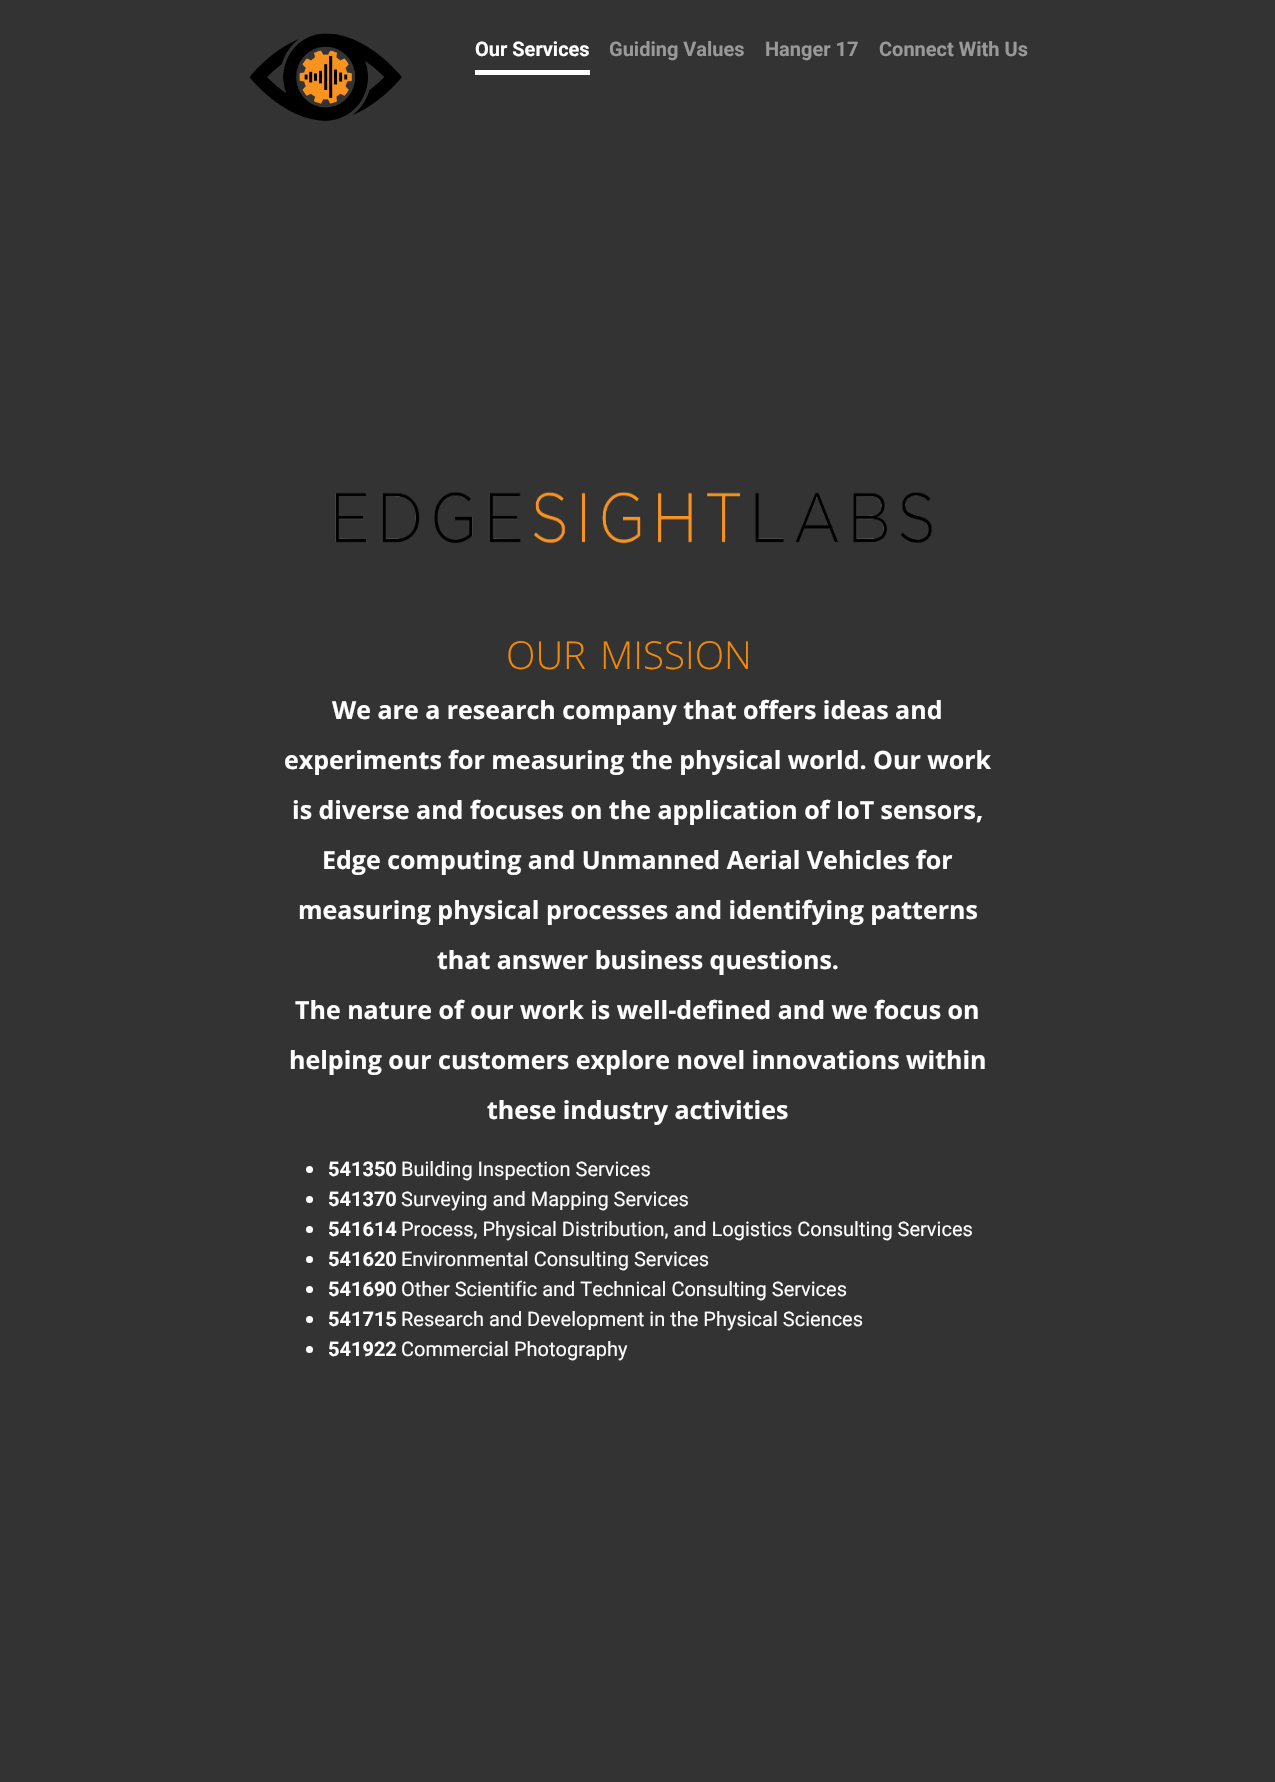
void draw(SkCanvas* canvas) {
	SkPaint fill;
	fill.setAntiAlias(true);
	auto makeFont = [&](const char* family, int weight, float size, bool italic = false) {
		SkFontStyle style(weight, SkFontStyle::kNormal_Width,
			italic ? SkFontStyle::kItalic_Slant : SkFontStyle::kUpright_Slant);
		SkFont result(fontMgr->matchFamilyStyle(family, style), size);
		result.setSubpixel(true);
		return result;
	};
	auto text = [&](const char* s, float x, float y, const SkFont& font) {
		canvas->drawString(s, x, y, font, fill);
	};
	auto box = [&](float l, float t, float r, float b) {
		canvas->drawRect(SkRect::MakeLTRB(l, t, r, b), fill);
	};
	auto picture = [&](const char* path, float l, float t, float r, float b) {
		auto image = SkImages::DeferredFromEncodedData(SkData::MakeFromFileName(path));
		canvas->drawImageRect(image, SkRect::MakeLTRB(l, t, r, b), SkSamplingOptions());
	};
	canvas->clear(0xFF333333);
	picture("image0.png", 249, 33, 402, 121);
	fill.setColor(0xFFFFFFFF);
	box(475, 70, 590, 75);
	picture("image1.png", 335, 491, 932, 544);
	canvas->drawCircle(309.5f, 1169.5f, 3.5f, fill);
	canvas->drawCircle(309.5f, 1199.5f, 3.5f, fill);
	canvas->drawCircle(309.5f, 1229.5f, 3.5f, fill);
	canvas->drawCircle(309.5f, 1259.5f, 3.5f, fill);
	canvas->drawCircle(309.5f, 1289.5f, 3.5f, fill);
	canvas->drawCircle(309.5f, 1319.5f, 3.5f, fill);
	canvas->drawCircle(309.5f, 1349.5f, 3.5f, fill);
	auto font1 = makeFont("Roboto", 700, 20);
	text("Our Services", 475, 56, font1);
	fill.setColor(0xFF999999);
	text("Guiding Values", 609, 56, font1);
	text("Hanger 17", 765, 56, font1);
	text("Connect With Us", 879, 56, font1);
	auto font2 = makeFont("Open Sans", 300, 38.5f);
	fill.setColor(0xFFF28807);
	text("OUR", 506, 669, font2);
	text("MISSION", 600, 669, font2);
	auto font3 = makeFont("Open Sans", 700, 25);
	fill.setColor(0xFFFFFFFF);
	text("We are a research company that offers ideas and", 332, 719, font3);
	text("experiments for measuring the physical world. Our work", 284, 769, font3);
	text("is diverse and focuses on the application of IoT sensors,", 292, 819, font3);
	text("Edge computing and Unmanned Aerial Vehicles for", 322, 869, font3);
	text("measuring physical processes and identifying patterns", 298, 919, font3);
	text("that answer business questions.", 437, 969, font3);
	text("The nature of our work is well-defined and we focus on", 295, 1019, font3);
	text("helping our customers explore novel innovations within", 289, 1069, font3);
	text("these industry activities", 487, 1119, font3);
	text("541350", 328, 1176, font1);
	auto font4 = makeFont("Roboto", 400, 20);
	text("Building Inspection Services", 401, 1176, font4);
	text("541370", 328, 1206, font1);
	text("Surveying and Mapping Services", 401, 1206, font4);
	text("541614", 328, 1236, font1);
	text("Process, Physical Distribution, and Logistics Consulting Services", 401, 1236, font4);
	text("541620", 328, 1266, font1);
	text("Environmental Consulting Services", 401, 1266, font4);
	text("541690", 328, 1296, font1);
	text("Other Scientific and Technical Consulting Services", 401, 1296, font4);
	text("541715", 328, 1326, font1);
	text("Research and Development in the Physical Sciences", 401, 1326, font4);
	text("541922", 328, 1356, font1);
	text("Commercial Photography", 401, 1356, font4);
}
